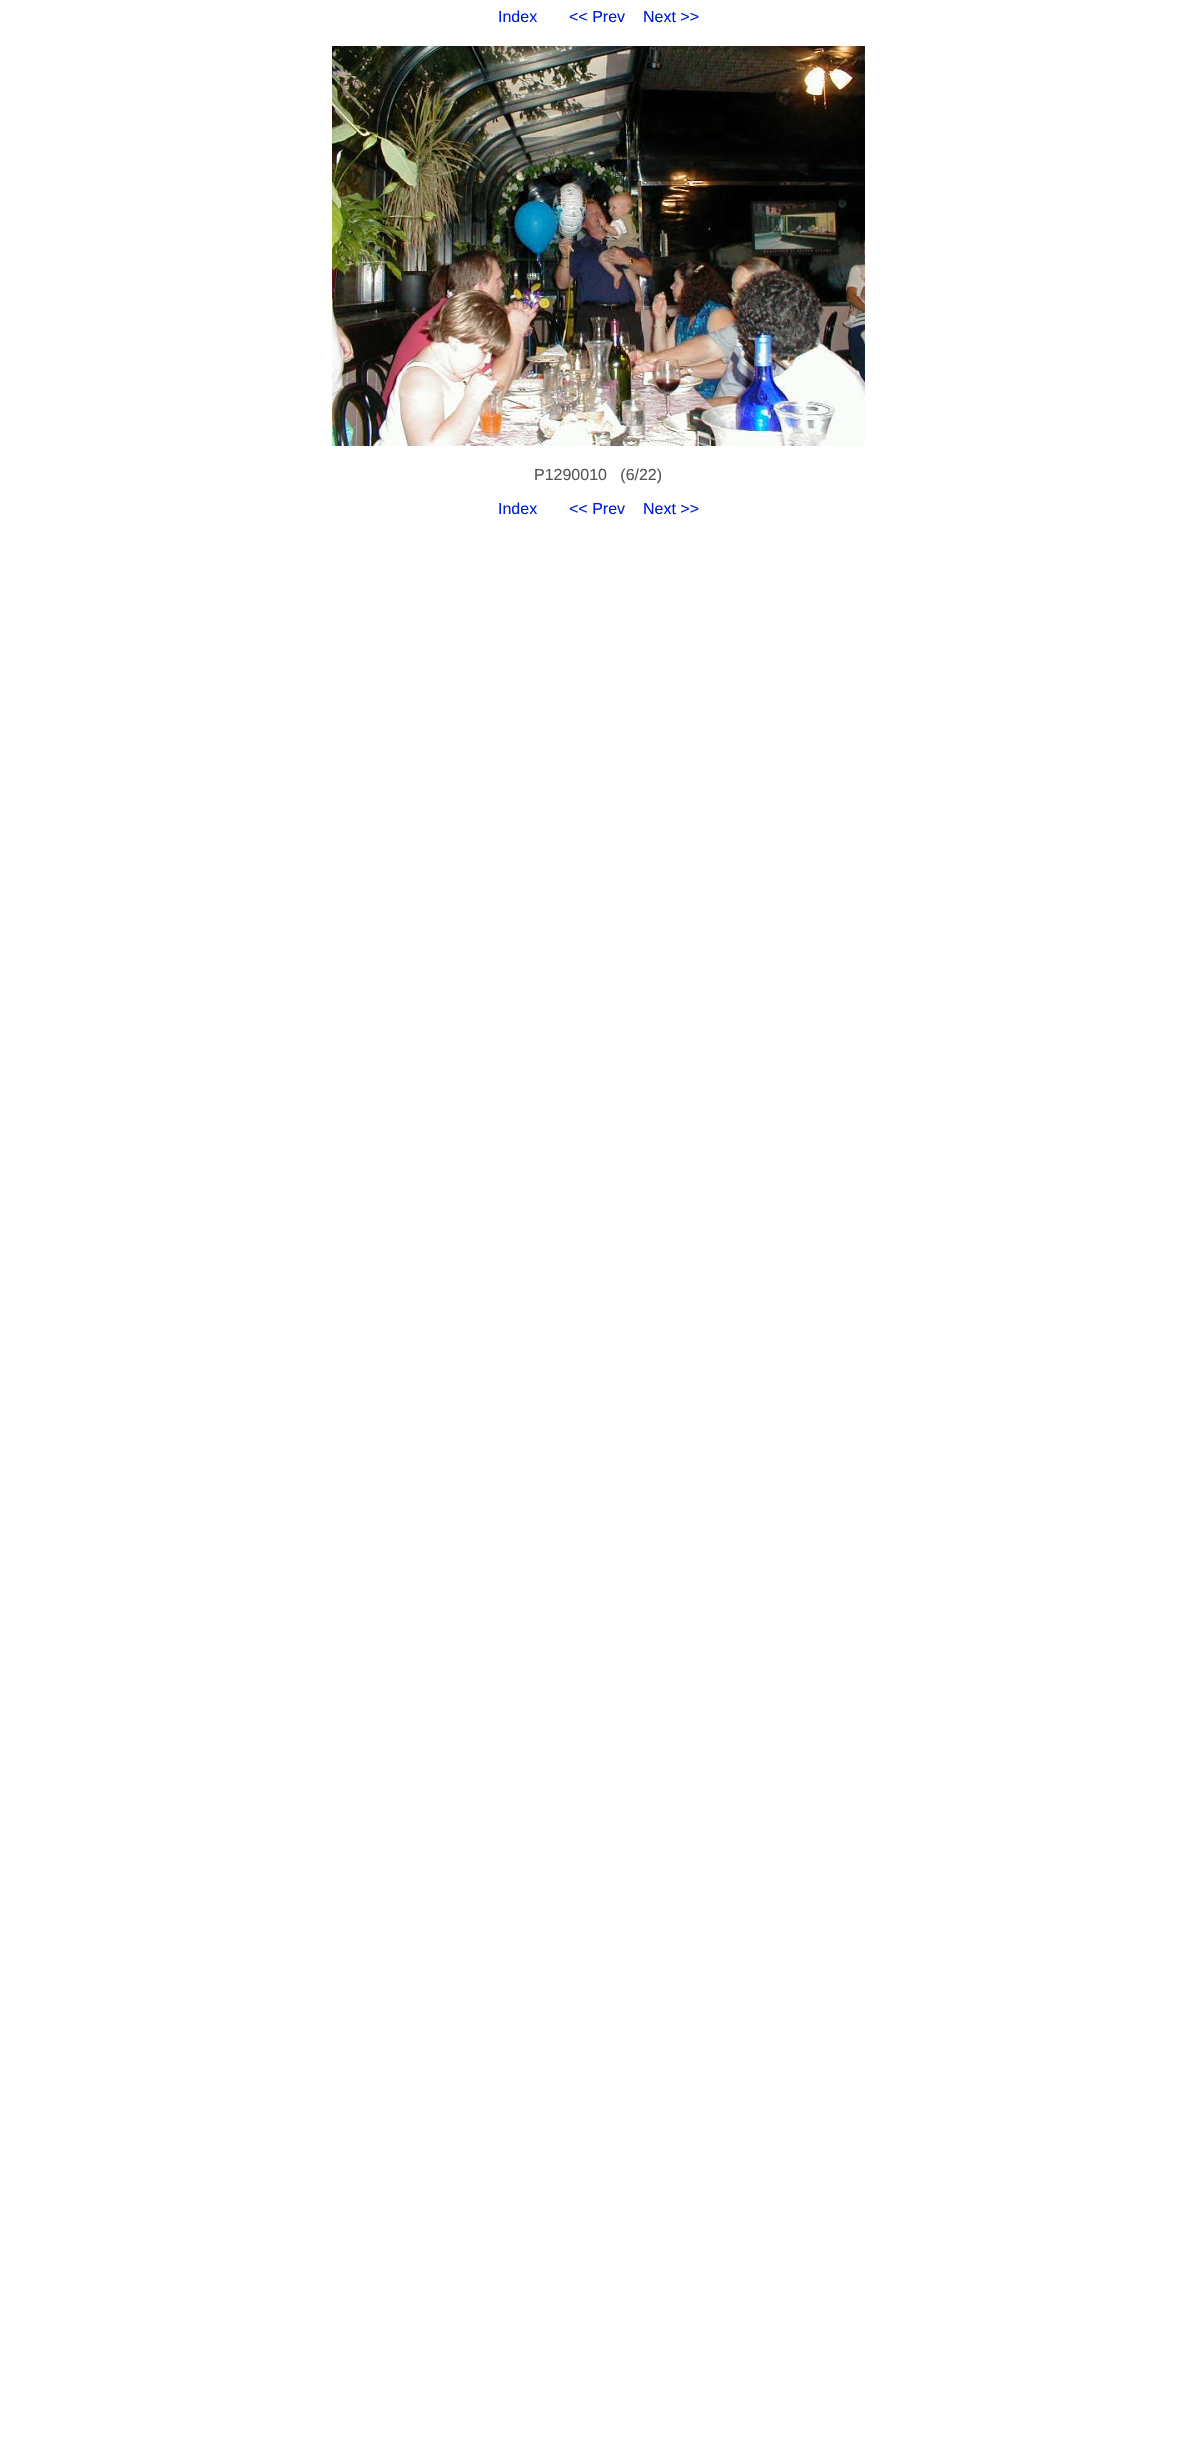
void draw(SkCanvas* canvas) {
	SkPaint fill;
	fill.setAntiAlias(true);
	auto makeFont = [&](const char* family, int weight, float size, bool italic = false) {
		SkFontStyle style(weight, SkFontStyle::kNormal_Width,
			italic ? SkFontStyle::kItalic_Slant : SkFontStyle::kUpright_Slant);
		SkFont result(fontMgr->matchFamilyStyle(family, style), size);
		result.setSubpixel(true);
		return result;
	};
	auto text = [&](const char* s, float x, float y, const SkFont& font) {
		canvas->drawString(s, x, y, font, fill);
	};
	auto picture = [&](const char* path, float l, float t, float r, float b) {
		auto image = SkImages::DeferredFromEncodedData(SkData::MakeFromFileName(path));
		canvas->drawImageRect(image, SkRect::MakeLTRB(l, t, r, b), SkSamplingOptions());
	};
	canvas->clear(0xFFFFFFFF);
	picture("image0.png", 332, 46, 865, 446);
	auto font1 = makeFont("Liberation Sans", 400, 16);
	fill.setColor(0xFF001DD9);
	text("Index", 498, 22, font1);
	text("<< Prev", 569, 22, font1);
	text("Next >>", 643, 22, font1);
	fill.setColor(0xFF555555);
	text("P1290010   (6/22)", 534, 480, font1);
	fill.setColor(0xFF001DD9);
	text("Index", 498, 514, font1);
	text("<< Prev", 569, 514, font1);
	text("Next >>", 643, 514, font1);
}
